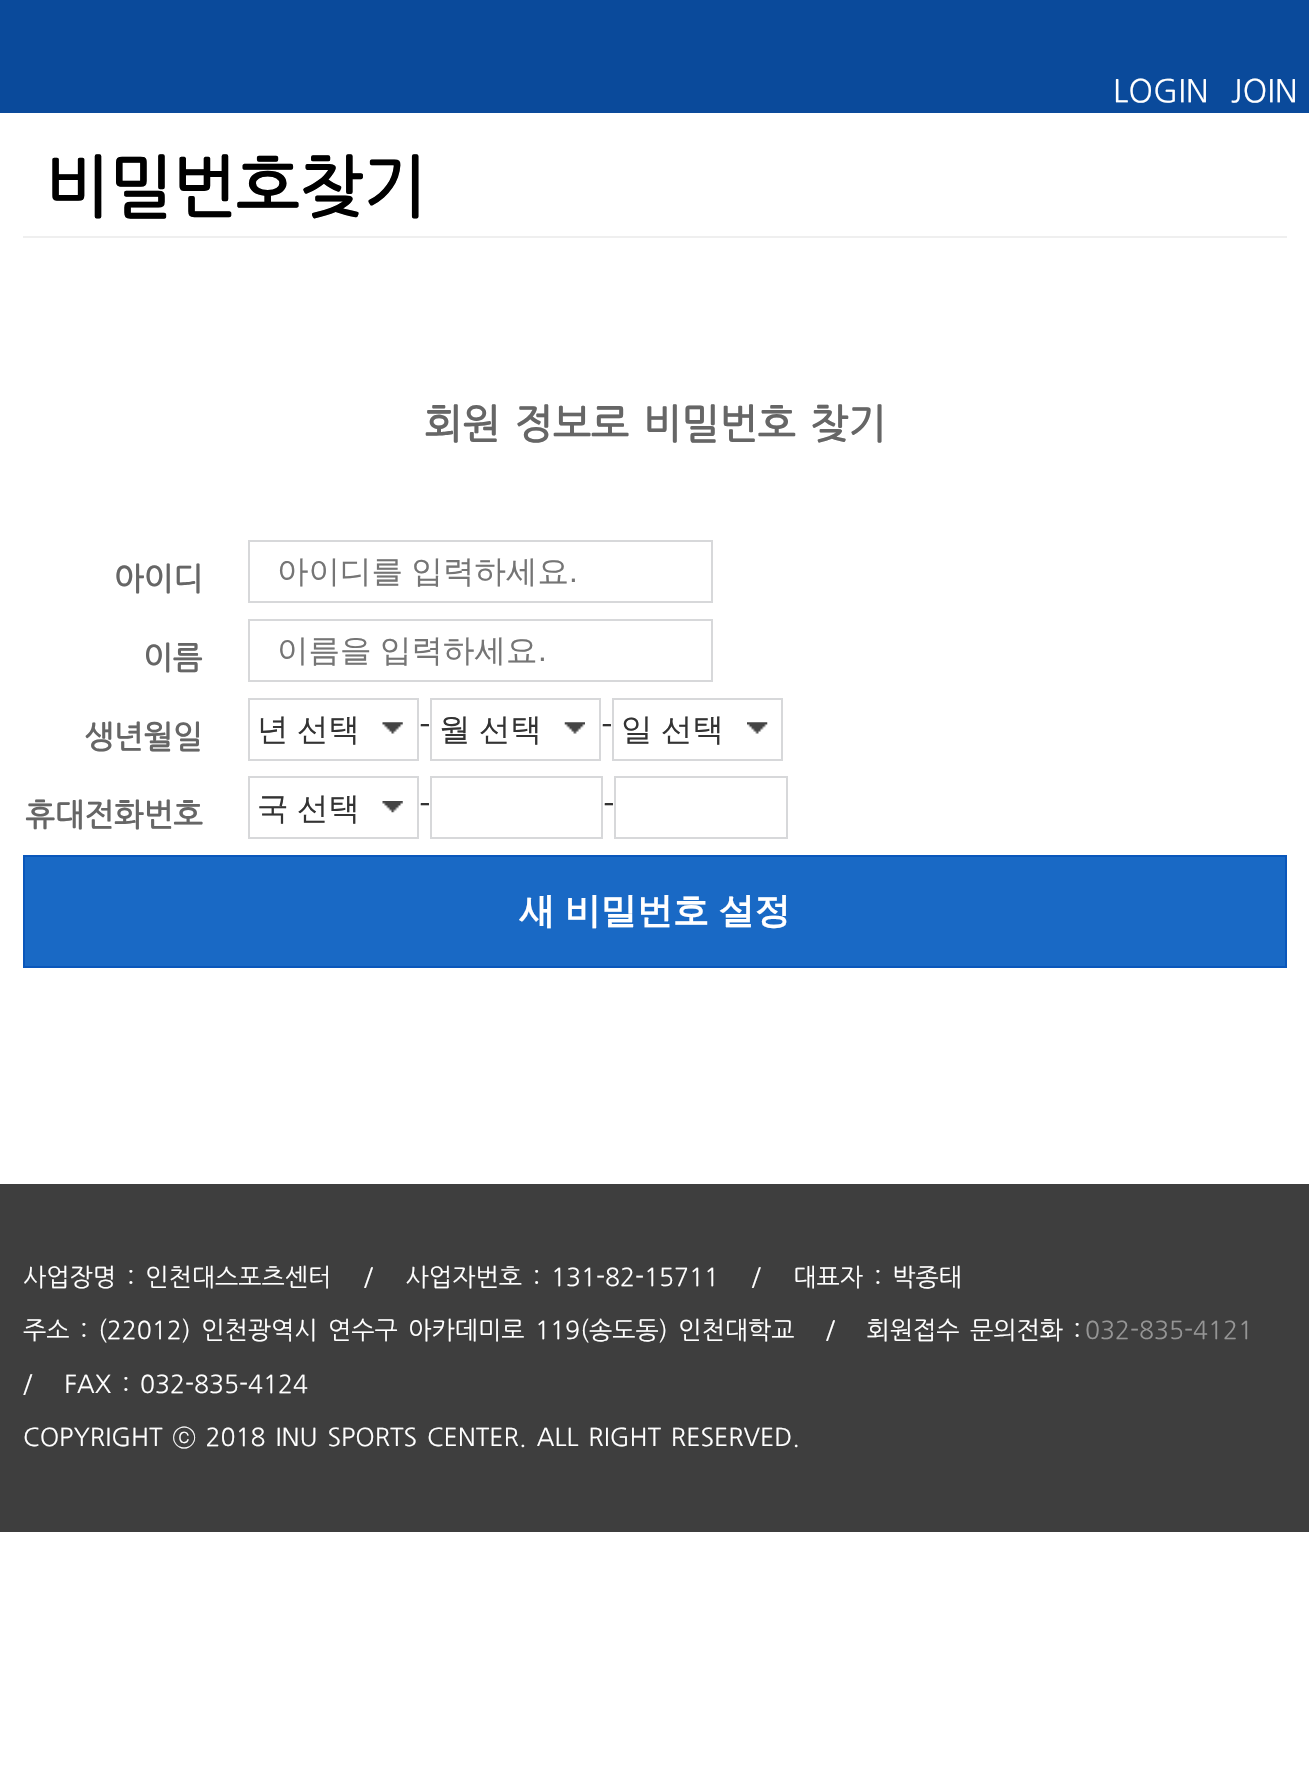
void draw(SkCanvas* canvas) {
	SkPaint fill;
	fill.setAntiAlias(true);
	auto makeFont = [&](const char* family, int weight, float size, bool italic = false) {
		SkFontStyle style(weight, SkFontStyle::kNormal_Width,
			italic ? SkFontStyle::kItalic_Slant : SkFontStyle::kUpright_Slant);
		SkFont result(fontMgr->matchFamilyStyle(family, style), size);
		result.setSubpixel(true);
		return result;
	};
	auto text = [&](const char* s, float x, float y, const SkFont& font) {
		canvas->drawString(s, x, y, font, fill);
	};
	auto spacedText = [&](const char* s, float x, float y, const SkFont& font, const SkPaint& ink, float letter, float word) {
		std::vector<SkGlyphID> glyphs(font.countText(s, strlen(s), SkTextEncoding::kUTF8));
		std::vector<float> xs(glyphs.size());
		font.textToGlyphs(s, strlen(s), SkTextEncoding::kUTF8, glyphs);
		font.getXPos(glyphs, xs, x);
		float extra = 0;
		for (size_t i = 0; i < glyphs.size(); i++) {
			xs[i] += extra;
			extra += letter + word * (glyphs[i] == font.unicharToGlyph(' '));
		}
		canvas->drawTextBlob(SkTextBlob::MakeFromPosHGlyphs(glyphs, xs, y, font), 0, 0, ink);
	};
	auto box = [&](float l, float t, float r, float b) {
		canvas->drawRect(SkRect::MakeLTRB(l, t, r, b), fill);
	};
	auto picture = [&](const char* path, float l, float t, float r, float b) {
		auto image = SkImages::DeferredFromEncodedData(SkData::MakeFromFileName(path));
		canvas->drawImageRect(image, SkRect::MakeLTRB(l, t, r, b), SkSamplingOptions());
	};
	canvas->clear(0xFFFFFFFF);
	fill.setColor(0xFF0A4A9B);
	box(0, 0, 1309, 113);
	fill.setColor(0xFFEFEFEF);
	box(23, 236, 1287, 238);
	fill.setStyle(SkPaint::kStroke_Style);
	fill.setStrokeWidth(2);
	fill.setColor(0xFFD7D8DA);
	canvas->drawRect(SkRect::MakeLTRB(249, 541, 712, 602), fill);
	canvas->drawRect(SkRect::MakeLTRB(249, 620, 712, 681), fill);
	picture("image0.png", 382, 722, 403, 734);
	canvas->drawRect(SkRect::MakeLTRB(249, 699, 418, 760), fill);
	picture("image1.png", 564, 722, 585, 734);
	canvas->drawRect(SkRect::MakeLTRB(431, 699, 600, 760), fill);
	picture("image2.png", 747, 722, 768, 734);
	canvas->drawRect(SkRect::MakeLTRB(613, 699, 782, 760), fill);
	picture("image3.png", 382, 801, 403, 813);
	canvas->drawRect(SkRect::MakeLTRB(249, 777, 418, 838), fill);
	canvas->drawRect(SkRect::MakeLTRB(431, 777, 602, 838), fill);
	canvas->drawRect(SkRect::MakeLTRB(615, 777, 787, 838), fill);
	fill.setStyle(SkPaint::kFill_Style);
	fill.setColor(0xFF1969C5);
	canvas->drawRect(SkRect::MakeLTRB(24, 856, 1286, 967), fill);
	fill.setStyle(SkPaint::kStroke_Style);
	fill.setColor(0xFF0A57BB);
	canvas->drawRect(SkRect::MakeLTRB(24, 856, 1286, 967), fill);
	fill.setStyle(SkPaint::kFill_Style);
	fill.setColor(0xFF3E3E3E);
	box(0, 1184, 1309, 1532);
	auto font1 = makeFont("NanumGothic", 400, 31.5f);
	fill.setColor(0xFFFFFFFF);
	text("LOGIN", 1113, 101, font1);
	text("JOIN", 1231, 101, font1);
	auto font2 = makeFont("NanumGothic", 700, 67.5f);
	fill.setColor(0xFF000000);
	text("비밀번호찾기", 45, 209, font2);
	auto font3 = makeFont("NanumGothic", 700, 40.5f);
	fill.setColor(0xFF666666);
	spacedText("회원 정보로 비밀번호 찾기", 424, 437, font3, fill, 0, 3);
	auto font4 = makeFont("NanumGothic", 700, 31.5f);
	text("아이디", 114, 589, font4);
	auto font5 = makeFont("WenQuanYi Zen Hei", 500, 31.5f);
	fill.setColor(0xFF757575);
	spacedText("아이디를 입력하세요", 277, 582, font5, fill, 0, -1);
	auto font6 = makeFont("Liberation Sans", 400, 31.5f);
	text(".", 569, 582, font6);
	fill.setColor(0xFF666666);
	text("이름", 143, 668, font4);
	fill.setColor(0xFF757575);
	spacedText("이름을 입력하세요", 277, 661, font5, fill, 0, -1);
	text(".", 538, 661, font6);
	fill.setColor(0xFF666666);
	text("생년월일", 84, 747, font4);
	fill.setColor(0xFF333333);
	spacedText("년 선택", 257, 740, font5, fill, 0, -1);
	text("-", 419, 736, font1);
	spacedText("월 선택", 439, 740, font5, fill, 0, -1);
	text("-", 601, 736, font1);
	spacedText("일 선택", 621, 740, font5, fill, 0, -1);
	fill.setColor(0xFF666666);
	text("휴대전화번호", 25, 825, font4);
	fill.setColor(0xFF333333);
	spacedText("국 선택", 257, 819, font5, fill, 0, -1);
	text("-", 419, 815, font1);
	text("-", 603, 815, font1);
	auto font7 = makeFont("WenQuanYi Zen Hei", 700, 36);
	fill.setColor(0xFFFFFFFF);
	spacedText("새 비밀번호 설정", 519, 923, font7, fill, 0, -1);
	auto font8 = makeFont("NanumGothic", 400, 24.75f);
	spacedText("사업장명 : 인천대스포츠센터   /   사업자번호 : 131-82-15711   /   대표자 : 박종태", 23, 1285, font8, fill, 0, 3.9f);
	spacedText("주소 : (22012) 인천광역시 연수구 아카데미로 119(송도동) 인천대학교   /   회원접수 문의전화 :", 23, 1338, font8, fill, 0, 3.5f);
	fill.setColor(0xFF959595);
	text("032-835-4121", 1085, 1338, font8);
	fill.setColor(0xFFFFFFFF);
	spacedText("/   FAX : 032-835-4124", 23, 1392, font8, fill, 0, 3.75f);
	spacedText("COPYRIGHT ⓒ 2018 INU SPORTS CENTER. ALL RIGHT RESERVED.", 23, 1445, font8, fill, 0, 3);
}
